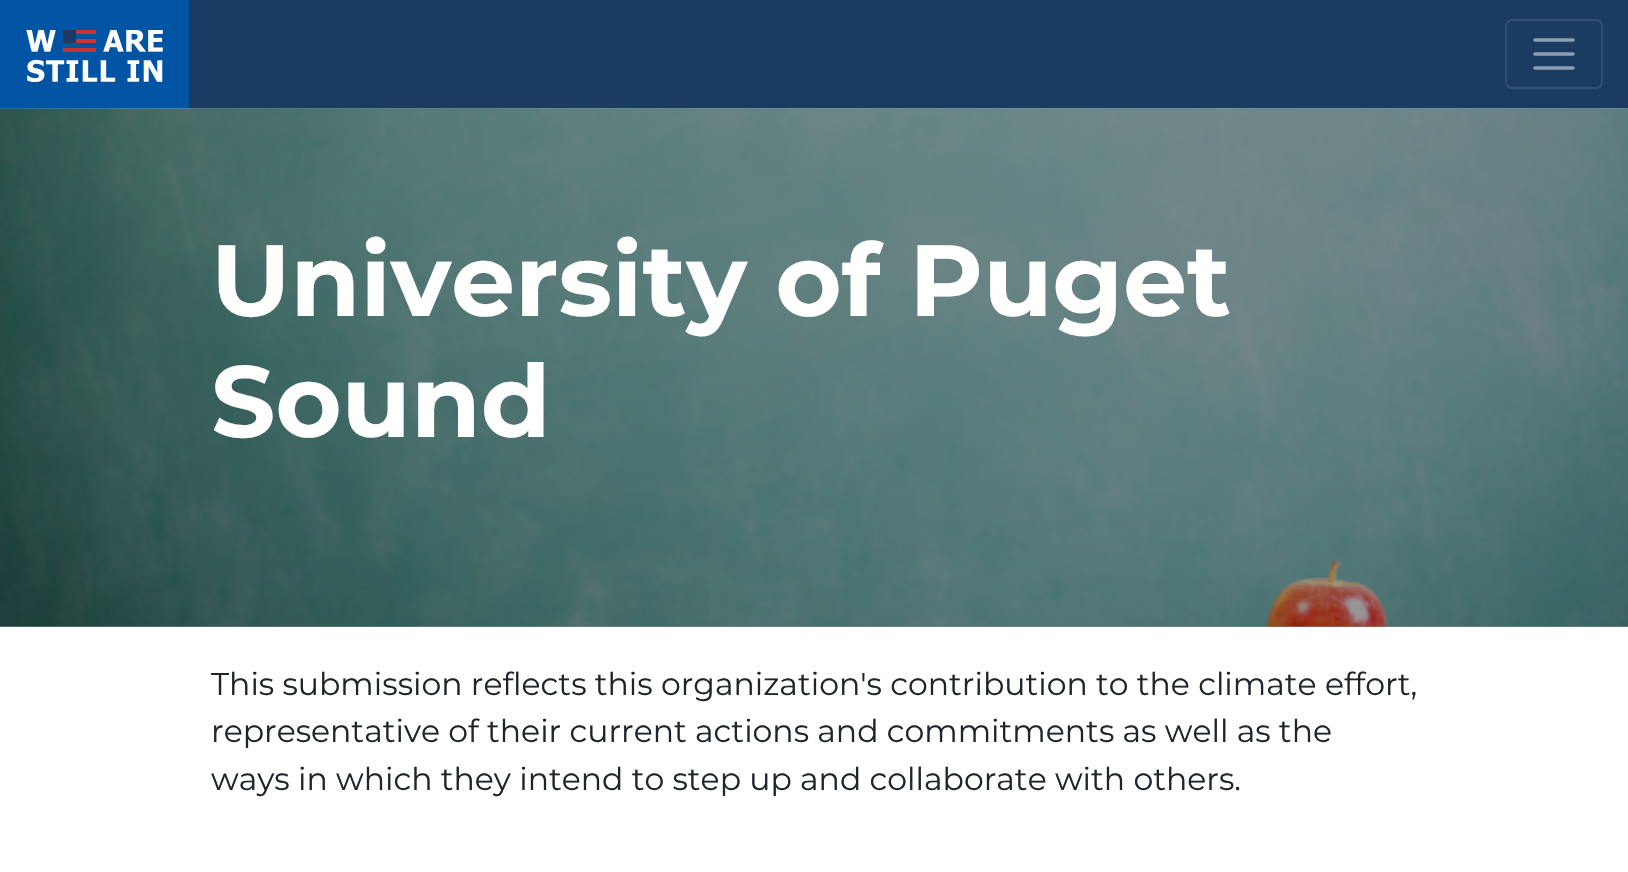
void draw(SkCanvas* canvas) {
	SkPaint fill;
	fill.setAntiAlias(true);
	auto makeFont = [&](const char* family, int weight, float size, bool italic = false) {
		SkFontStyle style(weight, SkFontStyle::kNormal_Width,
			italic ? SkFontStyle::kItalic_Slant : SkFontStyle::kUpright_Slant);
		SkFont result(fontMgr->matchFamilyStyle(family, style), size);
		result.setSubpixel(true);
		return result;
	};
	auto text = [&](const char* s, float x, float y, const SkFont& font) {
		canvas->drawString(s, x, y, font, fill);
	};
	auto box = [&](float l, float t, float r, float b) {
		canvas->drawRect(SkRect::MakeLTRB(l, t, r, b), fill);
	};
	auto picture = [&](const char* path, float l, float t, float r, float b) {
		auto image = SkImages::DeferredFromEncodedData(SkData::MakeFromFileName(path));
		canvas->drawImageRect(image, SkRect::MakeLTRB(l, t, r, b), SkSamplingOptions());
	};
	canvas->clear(0xFFFFFFFF);
	fill.setColor(0xFF1A3C62);
	box(189, 0, 1628, 109);
	fill.setColor(0xFF0154A4);
	box(0, 0, 189, 109);
	picture("image0.png", 26, 30, 163, 82);
	fill.setStyle(SkPaint::kStroke_Style);
	fill.setStrokeWidth(2);
	fill.setColor(0xFF315072);
	canvas->drawRoundRect(SkRect::MakeLTRB(1506, 20, 1602, 88), 6, 6, fill);
	fill.setStrokeWidth(3.5f);
	fill.setStrokeCap(SkPaint::kRound_Cap);
	fill.setColor(0xFF8D9EB1);
	canvas->drawPath(SkPathBuilder().moveTo(1535, 40).lineTo(1573, 40).moveTo(1535, 54).lineTo(1573, 54).moveTo(1535, 68).lineTo(1573, 68).detach(), fill);
	fill.setStyle(SkPaint::kFill_Style);
	fill.setColor(0xFF8B8B8B);
	box(0, 626, 1628, 627);
	picture("image1.png", 0, 108, 1628, 627);
	auto font1 = makeFont("Montserrat", 700, 101);
	fill.setColor(0xFFFFFFFF);
	text("University of Puget", 211, 316, font1);
	text("Sound", 211, 437, font1);
	auto font2 = makeFont("Montserrat", 400, 31.5f);
	fill.setColor(0xFF212529);
	text("This submission reflects this organization's contribution to the climate effort,", 211, 695, font2);
	text("representative of their current actions and commitments as well as the", 211, 742, font2);
	text("ways in which they intend to step up and collaborate with others.", 211, 790, font2);
}
